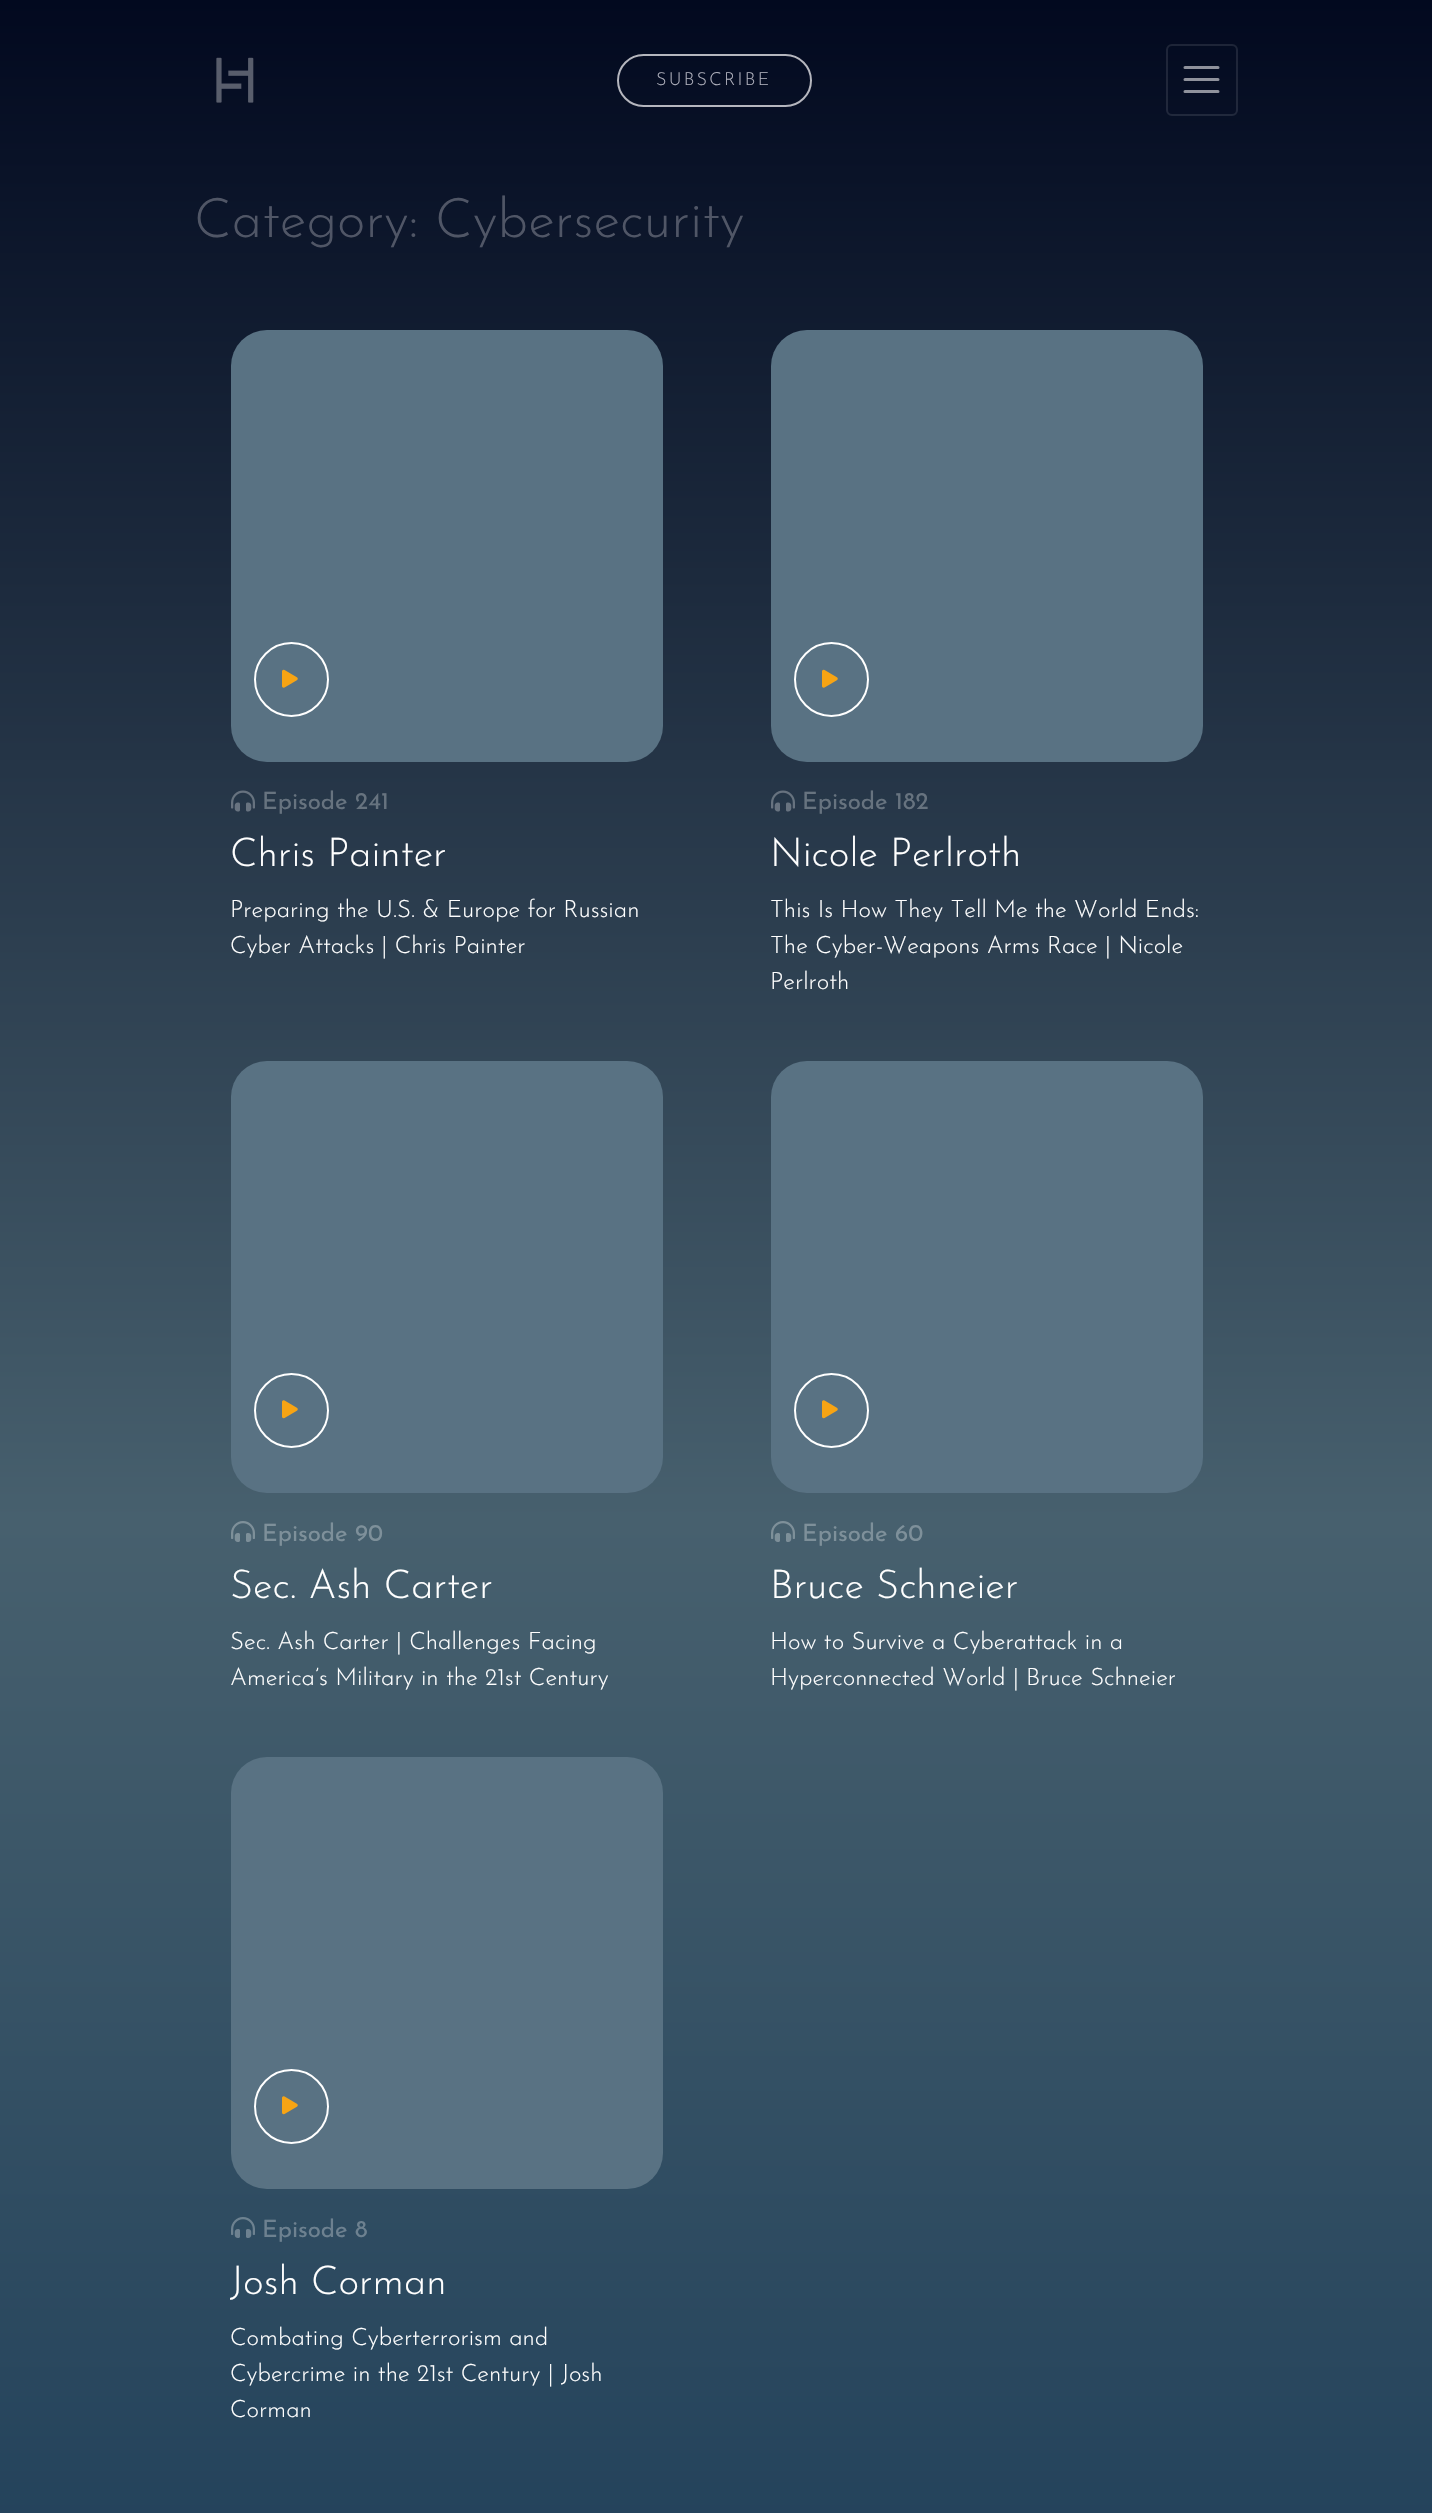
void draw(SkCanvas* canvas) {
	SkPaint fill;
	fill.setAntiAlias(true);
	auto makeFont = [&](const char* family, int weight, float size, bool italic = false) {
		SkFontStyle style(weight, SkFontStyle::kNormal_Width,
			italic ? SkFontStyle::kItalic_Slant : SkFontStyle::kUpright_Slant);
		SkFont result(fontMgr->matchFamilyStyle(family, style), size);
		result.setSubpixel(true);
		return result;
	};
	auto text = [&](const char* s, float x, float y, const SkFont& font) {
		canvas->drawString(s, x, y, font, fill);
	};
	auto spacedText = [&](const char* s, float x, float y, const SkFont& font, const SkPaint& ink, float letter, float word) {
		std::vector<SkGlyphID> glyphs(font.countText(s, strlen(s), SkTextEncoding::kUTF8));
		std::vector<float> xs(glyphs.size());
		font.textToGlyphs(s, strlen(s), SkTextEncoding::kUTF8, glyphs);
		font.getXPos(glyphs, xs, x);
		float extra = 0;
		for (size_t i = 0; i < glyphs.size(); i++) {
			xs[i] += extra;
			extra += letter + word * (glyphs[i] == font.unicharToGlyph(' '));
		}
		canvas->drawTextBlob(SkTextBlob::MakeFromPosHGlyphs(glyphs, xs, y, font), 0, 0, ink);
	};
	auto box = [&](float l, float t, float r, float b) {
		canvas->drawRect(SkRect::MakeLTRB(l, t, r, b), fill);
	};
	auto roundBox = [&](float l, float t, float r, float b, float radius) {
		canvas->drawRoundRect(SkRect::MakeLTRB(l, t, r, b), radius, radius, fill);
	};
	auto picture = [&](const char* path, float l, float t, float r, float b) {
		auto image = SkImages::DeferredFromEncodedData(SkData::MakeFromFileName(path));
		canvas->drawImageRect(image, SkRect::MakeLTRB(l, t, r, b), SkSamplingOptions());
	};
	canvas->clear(0xFFFFFFFF);
	{
		const SkColor colors[] = {0xFF02091F, 0xFF47606E, 0xFF123452};
		const float stops[] = {0, 0.5f, 1};
		const SkPoint ends[] = {{716, 0}, {716, 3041}};
		fill.setShader(SkGradientShader::MakeLinear(ends, colors, stops, 3, SkTileMode::kClamp));
		fill.setAlpha(255);
	}
	box(0, 0, 1432, 2513);
	picture("image0.png", 216, 57, 254, 103);
	fill.setStyle(SkPaint::kStroke_Style);
	fill.setStrokeWidth(2);
	fill.setShader(nullptr);
	fill.setColor(0xFFB5B6BE);
	canvas->drawRoundRect(SkRect::MakeLTRB(618, 55, 811, 106), 25.5f, 25.5f, fill);
	fill.setColor(0x1AFFFFFF);
	canvas->drawRoundRect(SkRect::MakeLTRB(1167, 45, 1237, 115), 5, 5, fill);
	fill.setStrokeWidth(3);
	fill.setStrokeCap(SkPaint::kRound_Cap);
	fill.setColor(0xFF8F929C);
	canvas->drawPath(SkPathBuilder().moveTo(1185, 67.5f).lineTo(1218, 67.5f).moveTo(1185, 79.5f).lineTo(1218, 79.5f).moveTo(1185, 91.5f).lineTo(1218, 91.5f).detach(), fill);
	fill.setStyle(SkPaint::kFill_Style);
	fill.setColor(0xFF597283);
	roundBox(231, 330, 663, 762, 36);
	fill.setStyle(SkPaint::kStroke_Style);
	fill.setStrokeWidth(2);
	fill.setStrokeCap(SkPaint::kButt_Cap);
	fill.setColor(0xFFFFFFFF);
	canvas->drawCircle(291.5f, 679.5f, 36.5f, fill);
	picture("image1.png", 282, 669, 298, 688);
	picture("image2.png", 231, 790, 255, 812);
	fill.setStyle(SkPaint::kFill_Style);
	fill.setColor(0xFF597283);
	roundBox(771, 330, 1203, 762, 36);
	fill.setStyle(SkPaint::kStroke_Style);
	fill.setColor(0xFFFFFFFF);
	canvas->drawCircle(831.5f, 679.5f, 36.5f, fill);
	picture("image1.png", 822, 669, 838, 688);
	picture("image2.png", 771, 790, 795, 812);
	fill.setStyle(SkPaint::kFill_Style);
	fill.setColor(0xFF597283);
	roundBox(231, 1061, 663, 1493, 36);
	fill.setStyle(SkPaint::kStroke_Style);
	fill.setColor(0xFFFFFFFF);
	canvas->drawCircle(291.5f, 1410.5f, 36.5f, fill);
	picture("image3.png", 282, 1400, 298, 1419);
	picture("image4.png", 231, 1521, 255, 1542);
	fill.setStyle(SkPaint::kFill_Style);
	fill.setColor(0xFF597283);
	roundBox(771, 1061, 1203, 1493, 36);
	fill.setStyle(SkPaint::kStroke_Style);
	fill.setColor(0xFFFFFFFF);
	canvas->drawCircle(831.5f, 1410.5f, 36.5f, fill);
	picture("image3.png", 822, 1400, 838, 1419);
	picture("image4.png", 771, 1521, 795, 1542);
	fill.setStyle(SkPaint::kFill_Style);
	fill.setColor(0xFF597283);
	roundBox(231, 1757, 663, 2189, 36);
	fill.setStyle(SkPaint::kStroke_Style);
	fill.setColor(0xFFFFFFFF);
	canvas->drawCircle(291.5f, 2106.5f, 36.5f, fill);
	picture("image3.png", 282, 2096, 298, 2115);
	picture("image5.png", 231, 2217, 255, 2238);
	auto font1 = makeFont("Josefin Sans", 300, 18);
	fill.setStyle(SkPaint::kFill_Style);
	fill.setColor(0xFFB0B1BD);
	spacedText("SUBSCRIBE", 656, 85, font1, fill, 2.25f, 0);
	auto font2 = makeFont("Josefin Sans", 300, 54.5f);
	fill.setColor(0xFF505666);
	text("Category: Cybersecurity", 194, 237, font2);
	auto font3 = makeFont("Josefin Sans", 100, 24);
	fill.setColor(0xFF67737F);
	text("Episode 241", 262, 809, font3);
	auto font4 = makeFont("Josefin Sans", 300, 39.75f);
	fill.setColor(0xFFFFFFFF);
	text("Chris Painter", 230, 866, font4);
	auto font5 = makeFont("Josefin Sans", 300, 24);
	text("Preparing the U.S. & Europe for Russian", 230, 917, font5);
	text("Cyber Attacks | Chris Painter", 230, 953, font5);
	fill.setColor(0xFF67737F);
	text("Episode 182", 802, 809, font3);
	fill.setColor(0xFFFFFFFF);
	text("Nicole Perlroth", 770, 866, font4);
	text("This Is How They Tell Me the World Ends:", 770, 917, font5);
	text("The Cyber-Weapons Arms Race | Nicole", 770, 953, font5);
	text("Perlroth", 770, 989, font5);
	fill.setColor(0xFF7E909A);
	text("Episode 90", 262, 1541, font3);
	fill.setColor(0xFFFFFFFF);
	text("Sec. Ash Carter", 230, 1598, font4);
	text("Sec. Ash Carter | Challenges Facing", 230, 1649, font5);
	text("America’s Military in the 21st Century", 230, 1685, font5);
	fill.setColor(0xFF7E909A);
	text("Episode 60", 802, 1541, font3);
	fill.setColor(0xFFFFFFFF);
	text("Bruce Schneier", 770, 1598, font4);
	text("How to Survive a Cyberattack in a", 770, 1649, font5);
	text("Hyperconnected World | Bruce Schneier", 770, 1685, font5);
	fill.setColor(0xFF6D8190);
	text("Episode 8", 262, 2237, font3);
	fill.setColor(0xFFFFFFFF);
	text("Josh Corman", 230, 2294, font4);
	text("Combating Cyberterrorism and", 230, 2345, font5);
	text("Cybercrime in the 21st Century | Josh", 230, 2381, font5);
	text("Corman", 230, 2417, font5);
}
